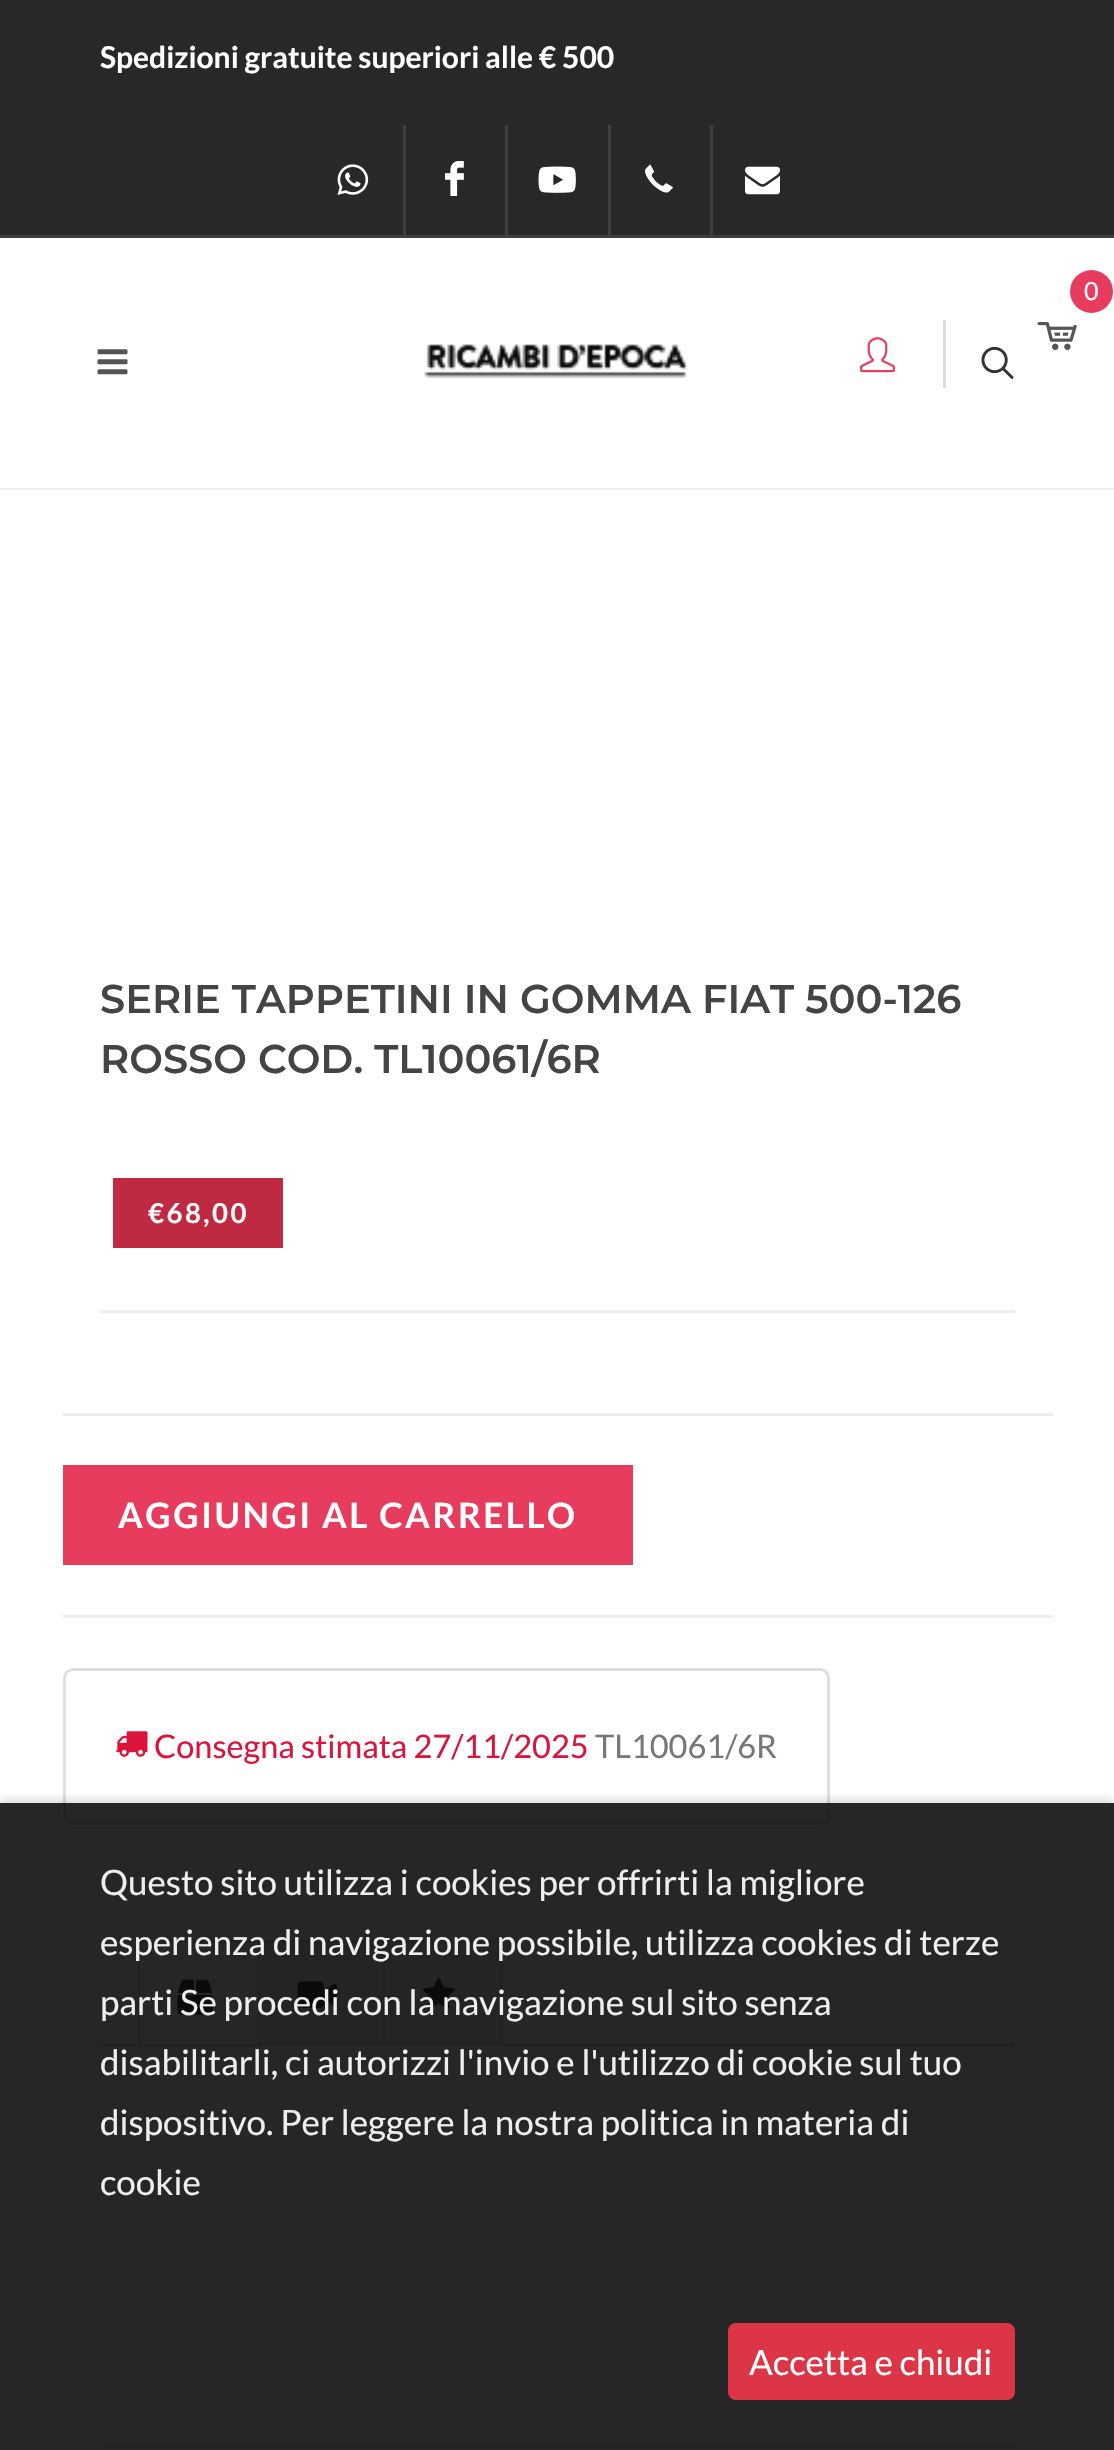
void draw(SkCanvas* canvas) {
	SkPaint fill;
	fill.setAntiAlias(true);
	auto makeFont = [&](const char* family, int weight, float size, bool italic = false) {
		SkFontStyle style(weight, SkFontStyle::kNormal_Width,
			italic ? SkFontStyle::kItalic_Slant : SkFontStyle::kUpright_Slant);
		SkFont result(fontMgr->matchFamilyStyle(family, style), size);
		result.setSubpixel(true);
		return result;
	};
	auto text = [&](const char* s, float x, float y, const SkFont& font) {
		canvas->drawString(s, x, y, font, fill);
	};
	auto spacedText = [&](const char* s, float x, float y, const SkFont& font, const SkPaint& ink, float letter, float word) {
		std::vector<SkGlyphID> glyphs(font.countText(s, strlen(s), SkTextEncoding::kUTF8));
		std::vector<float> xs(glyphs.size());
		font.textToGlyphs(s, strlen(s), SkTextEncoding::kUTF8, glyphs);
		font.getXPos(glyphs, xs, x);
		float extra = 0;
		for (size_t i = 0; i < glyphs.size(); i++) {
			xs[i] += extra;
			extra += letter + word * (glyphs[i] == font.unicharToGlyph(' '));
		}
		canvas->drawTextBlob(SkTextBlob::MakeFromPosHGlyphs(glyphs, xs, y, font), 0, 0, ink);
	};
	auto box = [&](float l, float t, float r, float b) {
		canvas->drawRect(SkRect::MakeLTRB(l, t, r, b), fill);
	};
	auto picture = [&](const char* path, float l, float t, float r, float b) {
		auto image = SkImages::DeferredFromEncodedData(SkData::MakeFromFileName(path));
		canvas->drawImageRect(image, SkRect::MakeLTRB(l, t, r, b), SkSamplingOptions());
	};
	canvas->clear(0xFFFFFFFF);
	fill.setColor(0xFF282828);
	box(0, 0, 1114, 235);
	fill.setColor(0xFF3E3E3E);
	box(0, 235, 1114, 238);
	picture("image0.png", 337, 164, 369, 195);
	box(403, 125, 406, 235);
	picture("image1.png", 445, 161, 464, 196);
	box(505, 125, 508, 235);
	picture("image2.png", 538, 166, 576, 193);
	box(608, 125, 611, 235);
	picture("image3.png", 645, 164, 673, 193);
	box(710, 125, 713, 235);
	picture("image4.png", 745, 166, 780, 195);
	fill.setColor(0xFFEEEEEE);
	box(0, 488, 1114, 490);
	fill.setColor(0xFFE83C5E);
	canvas->drawCircle(1091.5f, 291.5f, 21.5f, fill);
	picture("image5.png", 1037, 322, 1077, 350);
	fill.setColor(0xFFDDDDDD);
	box(943, 320, 946, 388);
	picture("image6.png", 860, 337, 895, 373);
	picture("image7.png", 981, 346, 1014, 379);
	picture("image8.png", 97, 349, 128, 375);
	picture("image9.png", 424, 344, 688, 379);
	fill.setColor(0xFFC02942);
	box(113, 1178, 283, 1248);
	fill.setColor(0xFFEEEEEE);
	box(100, 1310, 1015, 1313);
	box(63, 1413, 1053, 1416);
	fill.setColor(0xFFE83C5E);
	box(63, 1465, 633, 1565);
	fill.setColor(0xFFEEEEEE);
	box(63, 1615, 1053, 1618);
	fill.setStyle(SkPaint::kStroke_Style);
	fill.setStrokeWidth(3);
	fill.setColor(0xFFDFDFDF);
	canvas->drawRoundRect(SkRect::MakeLTRB(64.5f, 1669.5f, 828.5f, 1823.5f), 8.5f, 8.5f, fill);
	picture("image10.png", 116, 1731, 148, 1757);
	fill.setStyle(SkPaint::kFill_Style);
	fill.setColor(0xFFDDDDDD);
	box(100, 2043, 1015, 2046);
	box(138, 1940, 503, 1943);
	box(258, 1940, 260, 2043);
	box(138, 1940, 141, 2043);
	fill.setColor(0xFFFFFFFF);
	box(140, 1945, 258, 2045);
	picture("image11.png", 177, 1979, 213, 2015);
	fill.setColor(0xFFDDDDDD);
	box(383, 1940, 385, 2043);
	fill.setColor(0xFFF2F2F2);
	box(260, 1943, 383, 2043);
	picture("image12.png", 297, 1981, 337, 2008);
	fill.setColor(0xFFDDDDDD);
	box(500, 1940, 503, 2043);
	fill.setColor(0xFFF2F2F2);
	box(385, 1943, 500, 2043);
	picture("image13.png", 422, 1977, 455, 2009);
	fill.setColor(0xFFEEEEEE);
	box(100, 2445, 1015, 2448);
	canvas->save();
	canvas->clipRect(SkRect::MakeLTRB(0, 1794, 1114, 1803));
	fill.setColor(0x26000000);
	fill.setMaskFilter(SkMaskFilter::MakeBlur(kNormal_SkBlurStyle, 5));
	canvas->drawRect(SkRect::MakeLTRB(0, 1800, 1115, 2448), fill);
	fill.setMaskFilter(nullptr);
	canvas->restore();
	fill.setColor(0xD9000000);
	box(0, 1803, 1114, 2450);
	fill.setColor(0xFFDC3545);
	canvas->drawRoundRect(SkRect::MakeLTRB(729.5f, 2324.5f, 1013.5f, 2398.5f), 6.5f, 6.5f, fill);
	fill.setStyle(SkPaint::kStroke_Style);
	canvas->drawRoundRect(SkRect::MakeLTRB(729.5f, 2324.5f, 1013.5f, 2398.5f), 6.5f, 6.5f, fill);
	auto font1 = makeFont("Lato", 700, 30);
	fill.setStyle(SkPaint::kFill_Style);
	fill.setColor(0xFFFFFFFF);
	text("Spedizioni gratuite superiori alle € 500", 100, 68, font1);
	auto font2 = makeFont("Lato", 400, 25);
	text("0", 1084, 300, font2);
	auto font3 = makeFont("Montserrat", 600, 40);
	fill.setColor(0xFF444444);
	text("SERIE TAPPETINI IN GOMMA FIAT 500-126", 100, 1013, font3);
	text("ROSSO COD. TL10061/6R", 100, 1073, font3);
	auto font4 = makeFont("Lato", 700, 27.5f);
	fill.setColor(0xFFF8F9FA);
	spacedText("€68,00", 148, 1223, font4, fill, 2.5f, 0);
	auto font5 = makeFont("Lato", 700, 35);
	fill.setColor(0xFFFFFFFF);
	spacedText("AGGIUNGI AL CARRELLO", 118, 1528, font5, fill, 2.5f, 0);
	auto font6 = makeFont("Lato", 400, 32.5f);
	fill.setColor(0xFFDC143C);
	text("Consegna stimata 27/11/2025", 154, 1758, font6);
	fill.setColor(0xFF777777);
	text("TL10061/6R", 595, 1758, font6);
	auto font7 = makeFont("Lato", 400, 35);
	fill.setColor(0xFFEEEEEE);
	text("Questo sito utilizza i cookies per offrirti la migliore", 100, 1895, font7);
	text("esperienza di navigazione possibile, utilizza cookies di terze", 100, 1955, font7);
	text("parti Se procedi con la navigazione sul sito senza", 100, 2015, font7);
	text("disabilitarli, ci autorizzi l'invio e l'utilizzo di cookie sul tuo", 100, 2075, font7);
	text("dispositivo. Per leggere la nostra politica in materia di", 100, 2135, font7);
	text("cookie", 100, 2195, font7);
	fill.setColor(0xFFFFFFFF);
	text("Accetta e chiudi", 749, 2375, font7);
}
